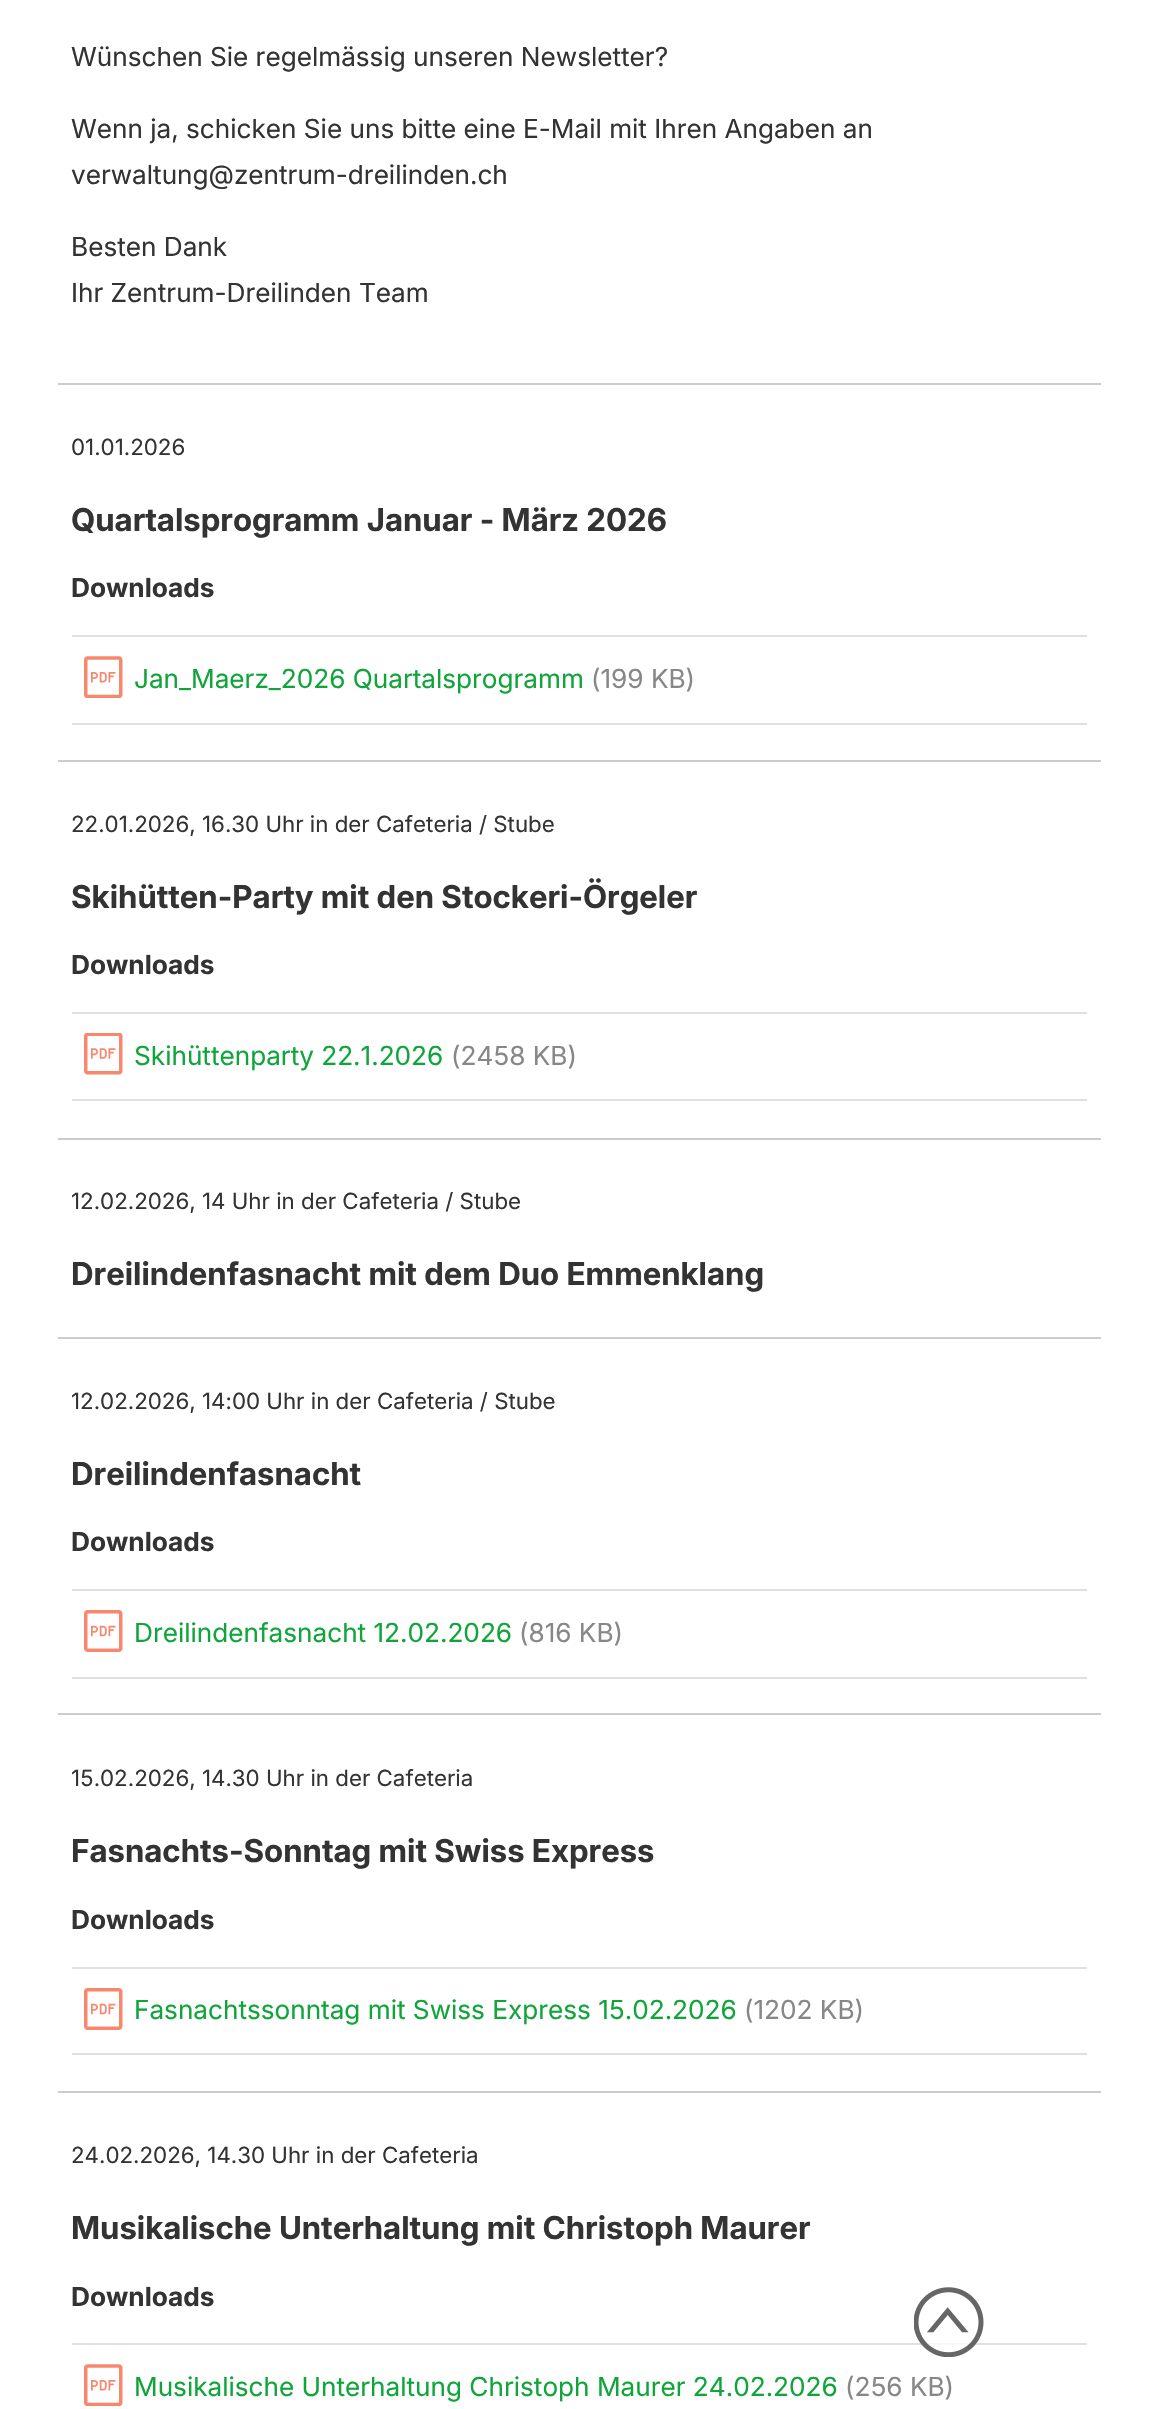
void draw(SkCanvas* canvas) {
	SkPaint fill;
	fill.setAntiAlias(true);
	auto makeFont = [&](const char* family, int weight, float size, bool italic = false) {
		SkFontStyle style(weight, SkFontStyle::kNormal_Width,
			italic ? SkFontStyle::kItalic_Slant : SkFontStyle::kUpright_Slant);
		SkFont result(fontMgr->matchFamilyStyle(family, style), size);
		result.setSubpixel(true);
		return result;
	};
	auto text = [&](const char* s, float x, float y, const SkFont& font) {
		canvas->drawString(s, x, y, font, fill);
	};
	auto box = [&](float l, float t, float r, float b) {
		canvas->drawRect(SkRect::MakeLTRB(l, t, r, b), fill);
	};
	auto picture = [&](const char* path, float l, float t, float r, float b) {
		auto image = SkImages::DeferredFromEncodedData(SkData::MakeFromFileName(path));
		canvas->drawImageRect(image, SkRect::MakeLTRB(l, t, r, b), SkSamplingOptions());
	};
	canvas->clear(0xFFFFFFFF);
	fill.setColor(0xFFCCCCCC);
	box(58, 383, 1101, 385);
	box(58, 760, 1101, 762);
	fill.setColor(0xFFE0E0E0);
	box(72, 635, 1087, 637);
	box(72, 723, 1087, 725);
	picture("image0.png", 84, 656, 123, 698);
	fill.setColor(0xFFCCCCCC);
	box(58, 1138, 1101, 1140);
	fill.setColor(0xFFE0E0E0);
	box(72, 1012, 1087, 1014);
	box(72, 1099, 1087, 1101);
	picture("image1.png", 84, 1033, 123, 1075);
	fill.setColor(0xFFCCCCCC);
	box(58, 1337, 1101, 1339);
	box(58, 1713, 1101, 1715);
	fill.setColor(0xFFE0E0E0);
	box(72, 1589, 1087, 1591);
	box(72, 1677, 1087, 1679);
	picture("image2.png", 84, 1610, 123, 1652);
	fill.setColor(0xFFCCCCCC);
	box(58, 2091, 1101, 2093);
	fill.setColor(0xFFE0E0E0);
	box(72, 1967, 1087, 1969);
	box(72, 2053, 1087, 2055);
	picture("image2.png", 84, 1988, 123, 2030);
	box(72, 2343, 1087, 2345);
	picture("image0.png", 84, 2364, 123, 2406);
	fill.setColor(0xCCFFFFFF);
	canvas->drawCircle(949, 2322, 35, fill);
	picture("image3.png", 914, 2287, 984, 2357);
	auto font1 = makeFont("Inter", 400, 26.25f);
	fill.setColor(0xFF333333);
	text("Wünschen Sie regelmässig unseren Newsletter?", 71, 66, font1);
	text("Wenn ja, schicken Sie uns bitte eine E-Mail mit Ihren Angaben an", 71, 138, font1);
	text("verwaltung@zentrum-dreilinden.ch", 71, 184, font1);
	text("Besten Dank", 71, 256, font1);
	text("Ihr Zentrum-Dreilinden Team", 71, 302, font1);
	auto font2 = makeFont("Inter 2", 400, 22.3f);
	text("01.01.2026", 71, 455, font2);
	auto font3 = makeFont("Inter", 700, 31.5f);
	text("Quartalsprogramm Januar - März 2026", 71, 531, font3);
	auto font4 = makeFont("Inter 2", 700, 26.25f);
	text("Downloads", 71, 597, font4);
	fill.setColor(0xFF10A53B);
	text("Jan_Maerz_2026 Quartalsprogramm", 134, 688, font1);
	fill.setColor(0xFF878787);
	text("(199 KB)", 591, 688, font1);
	fill.setColor(0xFF333333);
	text("22.01.2026, 16.30 Uhr in der Cafeteria / Stube", 71, 832, font2);
	text("Skihütten-Party mit den Stockeri-Örgeler", 71, 908, font3);
	text("Downloads", 71, 974, font4);
	fill.setColor(0xFF10A53B);
	text("Skihüttenparty 22.1.2026", 134, 1065, font1);
	fill.setColor(0xFF878787);
	text("(2458 KB)", 451, 1065, font1);
	fill.setColor(0xFF333333);
	text("12.02.2026, 14 Uhr in der Cafeteria / Stube", 71, 1209, font2);
	text("Dreilindenfasnacht mit dem Duo Emmenklang", 71, 1285, font3);
	text("12.02.2026, 14:00 Uhr in der Cafeteria / Stube", 71, 1409, font2);
	text("Dreilindenfasnacht", 71, 1485, font3);
	text("Downloads", 71, 1551, font4);
	fill.setColor(0xFF10A53B);
	text("Dreilindenfasnacht 12.02.2026", 134, 1642, font1);
	fill.setColor(0xFF878787);
	text("(816 KB)", 519, 1642, font1);
	fill.setColor(0xFF333333);
	text("15.02.2026, 14.30 Uhr in der Cafeteria", 71, 1786, font2);
	text("Fasnachts-Sonntag mit Swiss Express", 71, 1862, font3);
	text("Downloads", 71, 1929, font4);
	fill.setColor(0xFF10A53B);
	text("Fasnachtssonntag mit Swiss Express 15.02.2026", 134, 2019, font1);
	fill.setColor(0xFF878787);
	text("(1202 KB)", 744, 2019, font1);
	fill.setColor(0xFF333333);
	text("24.02.2026, 14.30 Uhr in der Cafeteria", 71, 2163, font2);
	text("Musikalische Unterhaltung mit Christoph Maurer", 71, 2239, font3);
	text("Downloads", 71, 2306, font4);
	fill.setColor(0xFF10A53B);
	text("Musikalische Unterhaltung Christoph Maurer 24.02.2026", 134, 2396, font1);
	fill.setColor(0xFF878787);
	text("(256 KB)", 845, 2396, font1);
}
